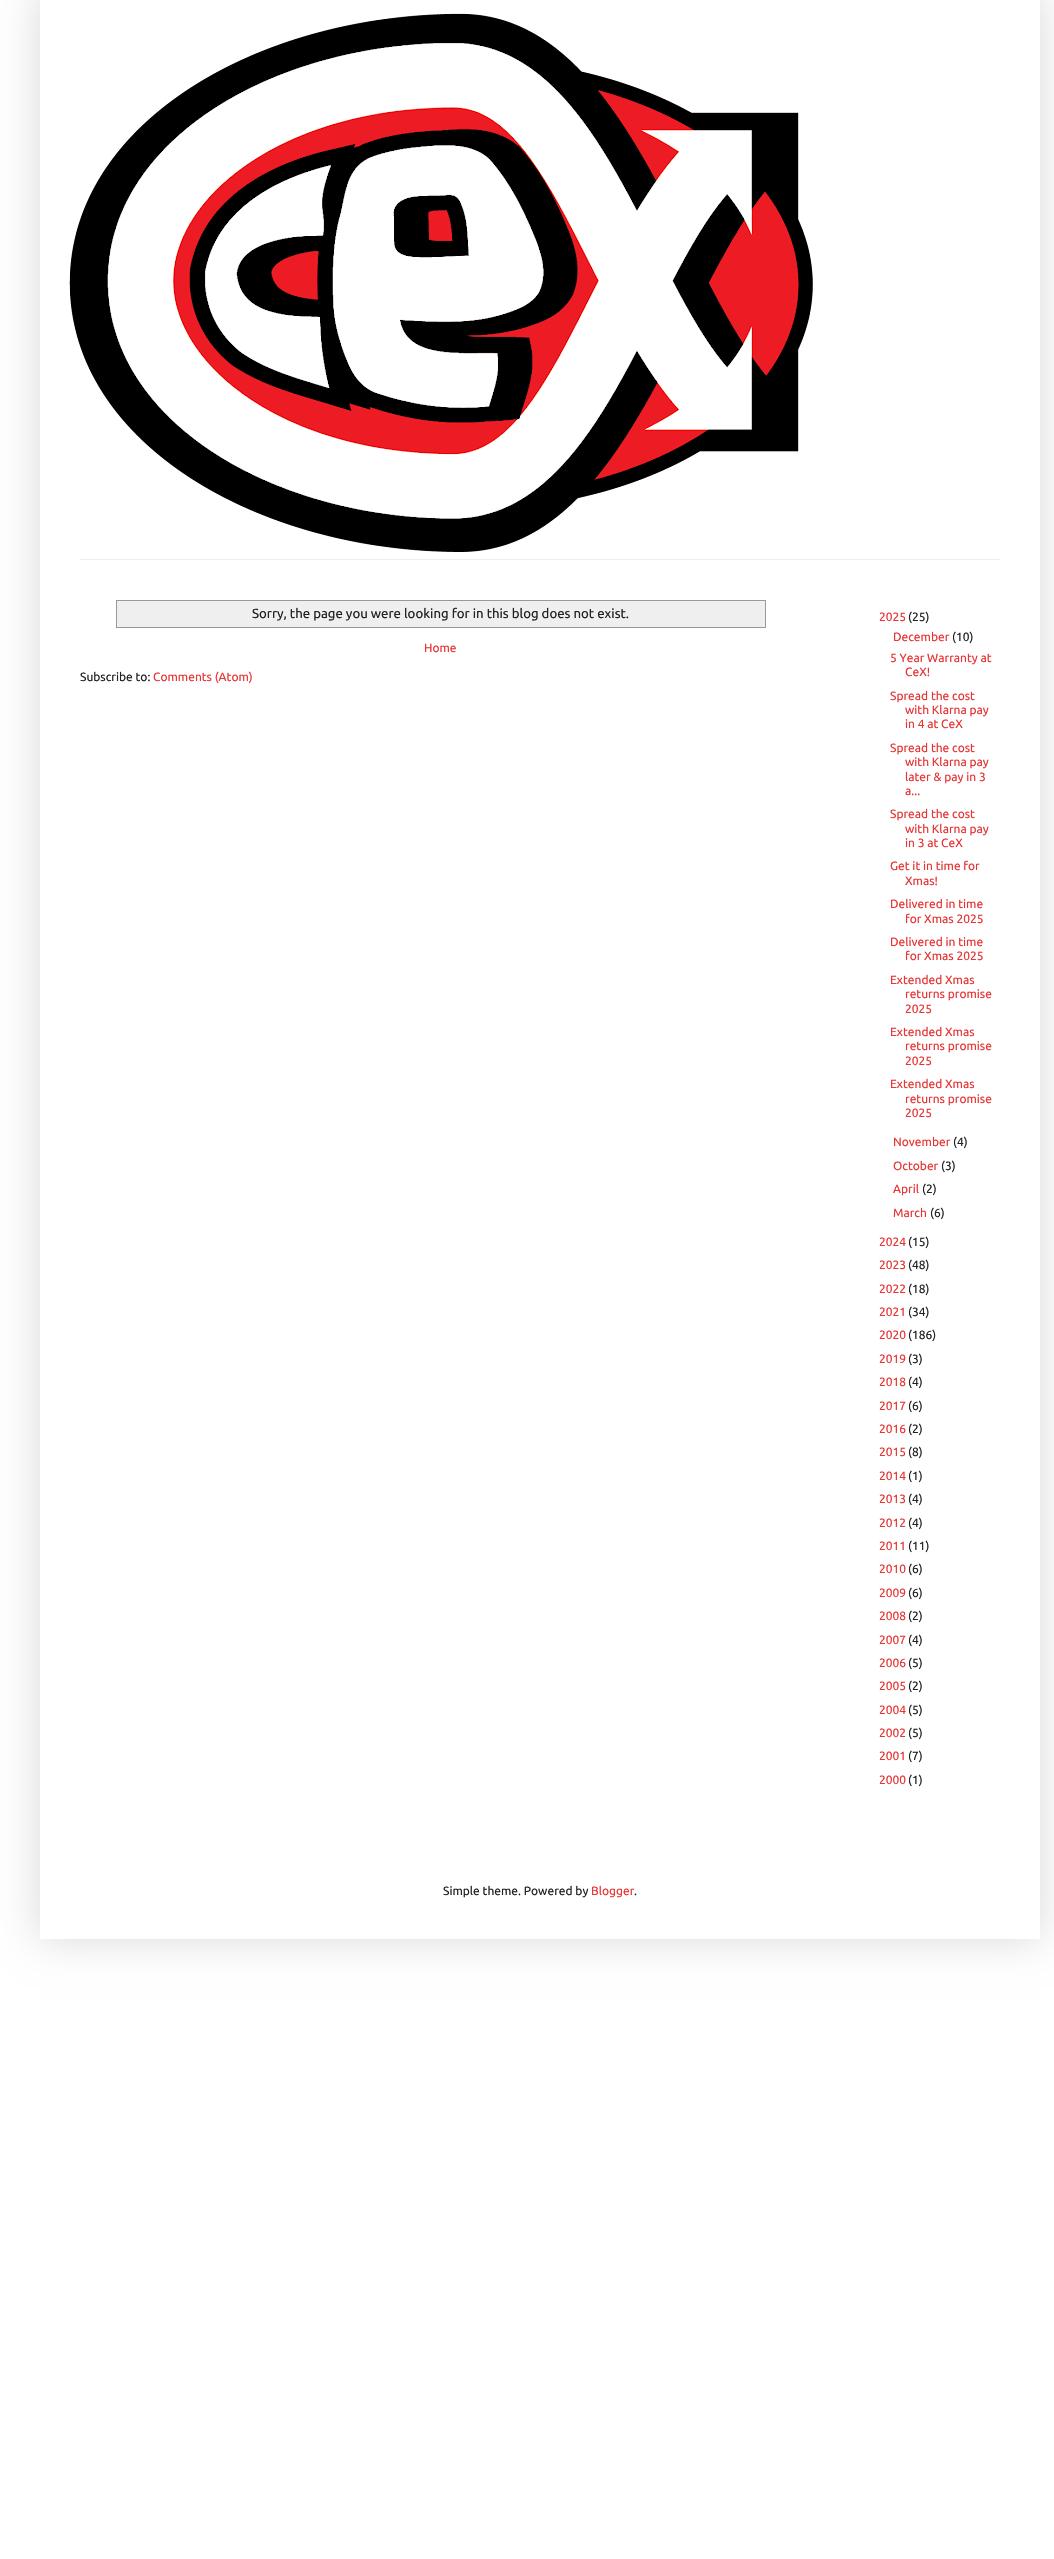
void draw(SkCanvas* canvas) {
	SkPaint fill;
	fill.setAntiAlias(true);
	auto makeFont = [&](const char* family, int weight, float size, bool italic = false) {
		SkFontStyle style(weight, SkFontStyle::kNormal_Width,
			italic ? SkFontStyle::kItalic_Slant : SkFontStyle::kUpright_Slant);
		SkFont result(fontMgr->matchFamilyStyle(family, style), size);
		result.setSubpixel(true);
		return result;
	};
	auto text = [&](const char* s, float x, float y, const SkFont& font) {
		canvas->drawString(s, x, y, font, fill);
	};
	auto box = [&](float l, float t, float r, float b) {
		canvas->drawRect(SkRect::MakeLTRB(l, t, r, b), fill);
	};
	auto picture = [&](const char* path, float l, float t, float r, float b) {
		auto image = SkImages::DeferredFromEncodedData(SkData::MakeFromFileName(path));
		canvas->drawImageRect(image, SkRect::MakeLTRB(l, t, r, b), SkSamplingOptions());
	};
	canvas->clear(0xFFFFFFFF);
	canvas->save();
	canvas->clipPath(SkPathBuilder(SkPathFillType::kEvenOdd).moveTo(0, 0).lineTo(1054, 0).lineTo(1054, 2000).lineTo(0, 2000).close().moveTo(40, -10).lineTo(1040, -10).lineTo(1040, 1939).lineTo(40, 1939).close().detach(), true);
	fill.setColor(0x26000000);
	fill.setMaskFilter(SkMaskFilter::MakeBlur(kNormal_SkBlurStyle, 20));
	canvas->drawRect(SkRect::MakeLTRB(40, -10, 1040, 1939), fill);
	fill.setMaskFilter(nullptr);
	canvas->restore();
	picture("image0.png", 69, 13, 813, 552);
	fill.setColor(0xFFEEEEEE);
	box(80, 559, 1000, 560);
	fill.setStyle(SkPaint::kStroke_Style);
	fill.setStrokeWidth(1);
	fill.setColor(0xFF999999);
	canvas->drawRect(SkRect::MakeLTRB(116.5f, 600.5f, 765.5f, 627.5f), fill);
	fill.setStyle(SkPaint::kFill_Style);
	fill.setColor(0xFFEFEFEF);
	box(117, 601, 765, 627);
	auto font1 = makeFont("Ubuntu", 400, 13.2f);
	fill.setColor(0xFF222222);
	text("Sorry, the page you were looking for in this blog does not exist.", 252, 618, font1);
	auto font2 = makeFont("Ubuntu", 400, 12);
	fill.setColor(0xFFE73434);
	text("Home", 424, 652, font2);
	fill.setColor(0xFF222222);
	text("Subscribe to:", 80, 681, font2);
	fill.setColor(0xFFE73434);
	text("Comments (Atom)", 153, 681, font2);
	text("2025", 879, 621, font2);
	fill.setColor(0xFF222222);
	text("(25)", 908, 621, font2);
	fill.setColor(0xFFE73434);
	text("December", 893, 641, font2);
	fill.setColor(0xFF222222);
	text("(10)", 952, 641, font2);
	fill.setColor(0xFFE73434);
	text("5 Year Warranty at", 890, 662, font2);
	text("CeX!", 905, 676, font2);
	text("Spread the cost", 890, 700, font2);
	text("with Klarna pay", 905, 714, font2);
	text("in 4 at CeX", 905, 728, font2);
	text("Spread the cost", 890, 752, font2);
	text("with Klarna pay", 905, 766, font2);
	text("later & pay in 3", 905, 781, font2);
	text("a...", 905, 795, font2);
	text("Spread the cost", 890, 818, font2);
	text("with Klarna pay", 905, 833, font2);
	text("in 3 at CeX", 905, 847, font2);
	text("Get it in time for", 890, 870, font2);
	text("Xmas!", 905, 885, font2);
	text("Delivered in time", 890, 908, font2);
	text("for Xmas 2025", 905, 923, font2);
	text("Delivered in time", 890, 946, font2);
	text("for Xmas 2025", 905, 960, font2);
	text("Extended Xmas", 890, 984, font2);
	text("returns promise", 905, 998, font2);
	text("2025", 905, 1013, font2);
	text("Extended Xmas", 890, 1036, font2);
	text("returns promise", 905, 1050, font2);
	text("2025", 905, 1065, font2);
	text("Extended Xmas", 890, 1088, font2);
	text("returns promise", 905, 1103, font2);
	text("2025", 905, 1117, font2);
	text("November", 893, 1146, font2);
	fill.setColor(0xFF222222);
	text("(4)", 953, 1146, font2);
	fill.setColor(0xFFE73434);
	text("October", 893, 1170, font2);
	fill.setColor(0xFF222222);
	text("(3)", 941, 1170, font2);
	fill.setColor(0xFFE73434);
	text("April", 893, 1193, font2);
	fill.setColor(0xFF222222);
	text("(2)", 922, 1193, font2);
	fill.setColor(0xFFE73434);
	text("March", 893, 1217, font2);
	fill.setColor(0xFF222222);
	text("(6)", 930, 1217, font2);
	fill.setColor(0xFFE73434);
	text("2024", 879, 1246, font2);
	fill.setColor(0xFF222222);
	text("(15)", 908, 1246, font2);
	fill.setColor(0xFFE73434);
	text("2023", 879, 1269, font2);
	fill.setColor(0xFF222222);
	text("(48)", 908, 1269, font2);
	fill.setColor(0xFFE73434);
	text("2022", 879, 1293, font2);
	fill.setColor(0xFF222222);
	text("(18)", 908, 1293, font2);
	fill.setColor(0xFFE73434);
	text("2021", 879, 1316, font2);
	fill.setColor(0xFF222222);
	text("(34)", 908, 1316, font2);
	fill.setColor(0xFFE73434);
	text("2020", 879, 1339, font2);
	fill.setColor(0xFF222222);
	text("(186)", 908, 1339, font2);
	fill.setColor(0xFFE73434);
	text("2019", 879, 1363, font2);
	fill.setColor(0xFF222222);
	text("(3)", 908, 1363, font2);
	fill.setColor(0xFFE73434);
	text("2018", 879, 1386, font2);
	fill.setColor(0xFF222222);
	text("(4)", 908, 1386, font2);
	fill.setColor(0xFFE73434);
	text("2017", 879, 1410, font2);
	fill.setColor(0xFF222222);
	text("(6)", 908, 1410, font2);
	fill.setColor(0xFFE73434);
	text("2016", 879, 1433, font2);
	fill.setColor(0xFF222222);
	text("(2)", 908, 1433, font2);
	fill.setColor(0xFFE73434);
	text("2015", 879, 1456, font2);
	fill.setColor(0xFF222222);
	text("(8)", 908, 1456, font2);
	fill.setColor(0xFFE73434);
	text("2014", 879, 1480, font2);
	fill.setColor(0xFF222222);
	text("(1)", 908, 1480, font2);
	fill.setColor(0xFFE73434);
	text("2013", 879, 1503, font2);
	fill.setColor(0xFF222222);
	text("(4)", 908, 1503, font2);
	fill.setColor(0xFFE73434);
	text("2012", 879, 1527, font2);
	fill.setColor(0xFF222222);
	text("(4)", 908, 1527, font2);
	fill.setColor(0xFFE73434);
	text("2011", 879, 1550, font2);
	fill.setColor(0xFF222222);
	text("(11)", 908, 1550, font2);
	fill.setColor(0xFFE73434);
	text("2010", 879, 1573, font2);
	fill.setColor(0xFF222222);
	text("(6)", 908, 1573, font2);
	fill.setColor(0xFFE73434);
	text("2009", 879, 1597, font2);
	fill.setColor(0xFF222222);
	text("(6)", 908, 1597, font2);
	fill.setColor(0xFFE73434);
	text("2008", 879, 1620, font2);
	fill.setColor(0xFF222222);
	text("(2)", 908, 1620, font2);
	fill.setColor(0xFFE73434);
	text("2007", 879, 1644, font2);
	fill.setColor(0xFF222222);
	text("(4)", 908, 1644, font2);
	fill.setColor(0xFFE73434);
	text("2006", 879, 1667, font2);
	fill.setColor(0xFF222222);
	text("(5)", 908, 1667, font2);
	fill.setColor(0xFFE73434);
	text("2005", 879, 1690, font2);
	fill.setColor(0xFF222222);
	text("(2)", 908, 1690, font2);
	fill.setColor(0xFFE73434);
	text("2004", 879, 1714, font2);
	fill.setColor(0xFF222222);
	text("(5)", 908, 1714, font2);
	fill.setColor(0xFFE73434);
	text("2002", 879, 1737, font2);
	fill.setColor(0xFF222222);
	text("(5)", 908, 1737, font2);
	fill.setColor(0xFFE73434);
	text("2001", 879, 1760, font2);
	fill.setColor(0xFF222222);
	text("(7)", 908, 1760, font2);
	fill.setColor(0xFFE73434);
	text("2000", 879, 1784, font2);
	fill.setColor(0xFF222222);
	text("(1)", 908, 1784, font2);
	text("Simple theme. Powered by", 443, 1895, font2);
	fill.setColor(0xFFE73434);
	text("Blogger", 591, 1895, font2);
	fill.setColor(0xFF222222);
	text(".", 634, 1895, font2);
}
